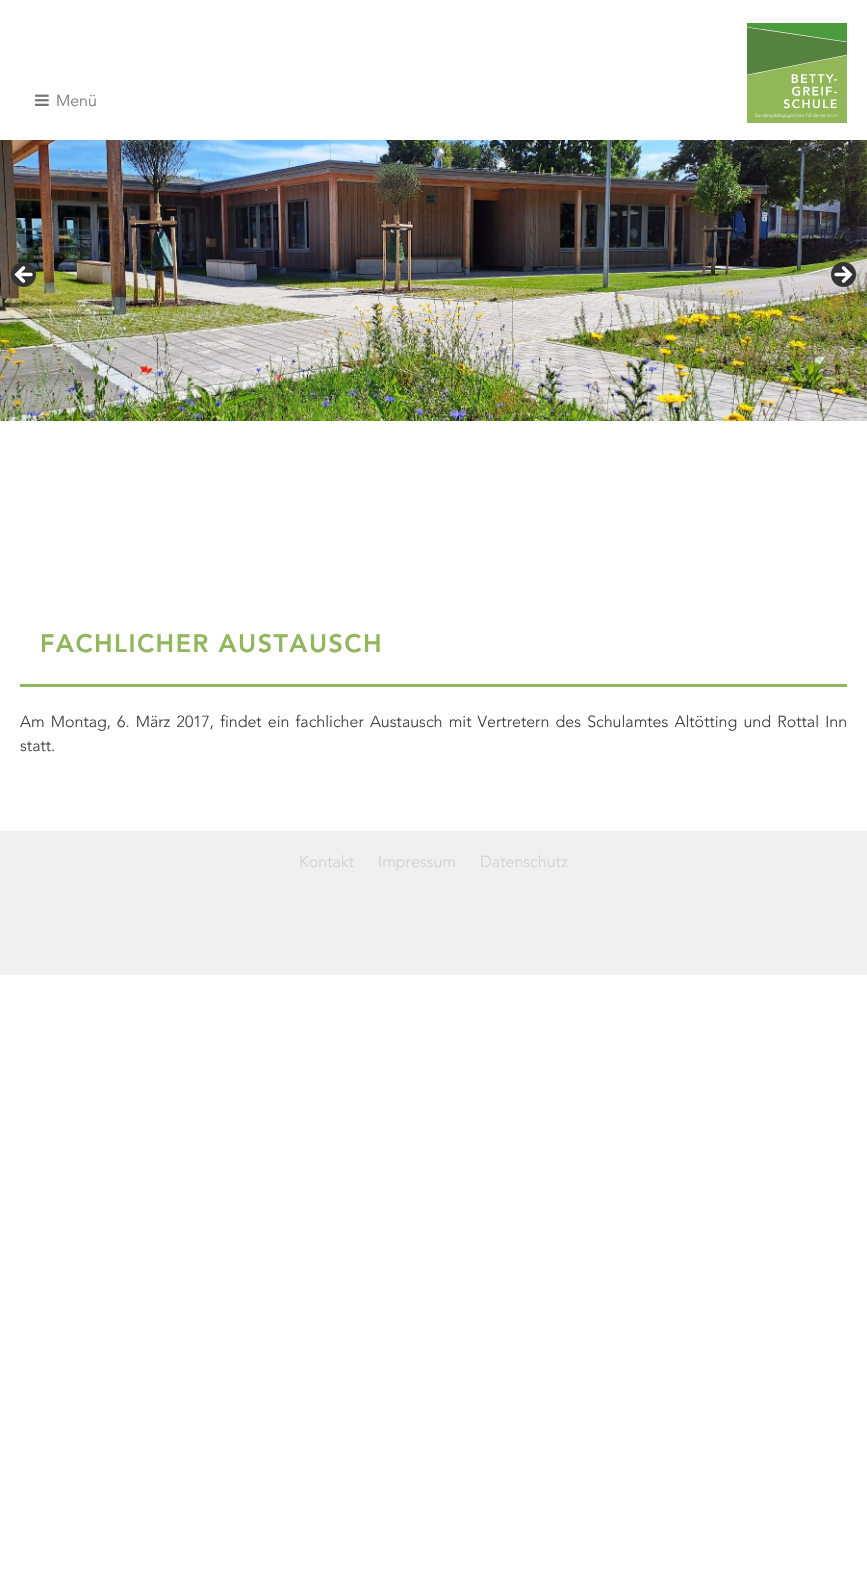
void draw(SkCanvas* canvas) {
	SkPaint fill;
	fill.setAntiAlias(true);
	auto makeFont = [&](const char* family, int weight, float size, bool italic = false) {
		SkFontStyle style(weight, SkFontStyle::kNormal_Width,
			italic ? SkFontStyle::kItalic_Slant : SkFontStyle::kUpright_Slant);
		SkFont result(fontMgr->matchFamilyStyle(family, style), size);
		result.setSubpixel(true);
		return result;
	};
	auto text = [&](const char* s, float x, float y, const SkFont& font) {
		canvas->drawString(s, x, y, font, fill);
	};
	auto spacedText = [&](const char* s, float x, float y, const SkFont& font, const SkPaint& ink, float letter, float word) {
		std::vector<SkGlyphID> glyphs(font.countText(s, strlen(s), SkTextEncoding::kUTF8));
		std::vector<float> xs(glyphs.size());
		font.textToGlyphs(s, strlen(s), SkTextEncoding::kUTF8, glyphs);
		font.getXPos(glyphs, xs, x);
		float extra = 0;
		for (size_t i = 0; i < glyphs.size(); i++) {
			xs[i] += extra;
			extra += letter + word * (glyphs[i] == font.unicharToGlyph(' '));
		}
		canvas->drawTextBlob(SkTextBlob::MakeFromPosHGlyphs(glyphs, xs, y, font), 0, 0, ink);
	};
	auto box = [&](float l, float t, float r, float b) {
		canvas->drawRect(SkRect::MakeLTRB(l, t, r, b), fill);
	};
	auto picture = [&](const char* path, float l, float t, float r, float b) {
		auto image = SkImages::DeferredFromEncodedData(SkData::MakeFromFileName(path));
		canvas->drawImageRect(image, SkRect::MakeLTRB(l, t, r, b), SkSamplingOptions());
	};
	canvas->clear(0xFFFFFFFF);
	picture("image0.png", 35, 94, 49, 106);
	picture("image1.png", 747, 23, 847, 123);
	picture("image2.png", 0, 140, 867, 421);
	picture("image3.png", 11, 262, 36, 287);
	picture("image4.png", 831, 262, 856, 287);
	fill.setColor(0xFF92B65D);
	box(20, 684, 847, 687);
	fill.setColor(0xFFF0F0F0);
	box(0, 831, 867, 975);
	auto font1 = makeFont("Avenir", 300, 16);
	fill.setColor(0xFF767676);
	text("Menü", 56, 106, font1);
	auto font2 = makeFont("Avenir", 900, 25);
	fill.setColor(0xFF92B65D);
	spacedText("FACHLICHER AUSTAUSCH", 40, 652, font2, fill, 1.5f, 0);
	fill.setColor(0xFF404040);
	spacedText("Am Montag, 6. März 2017, findet ein fachlicher Austausch mit Vertretern des Schulamtes Altötting und Rottal Inn", 20, 727, font1, fill, 0, 2);
	text("statt.", 20, 751, font1);
	fill.setColor(0xFFD2D2D2);
	text("Kontakt", 299, 867, font1);
	text("Impressum", 378, 867, font1);
	text("Datenschutz", 480, 867, font1);
}
